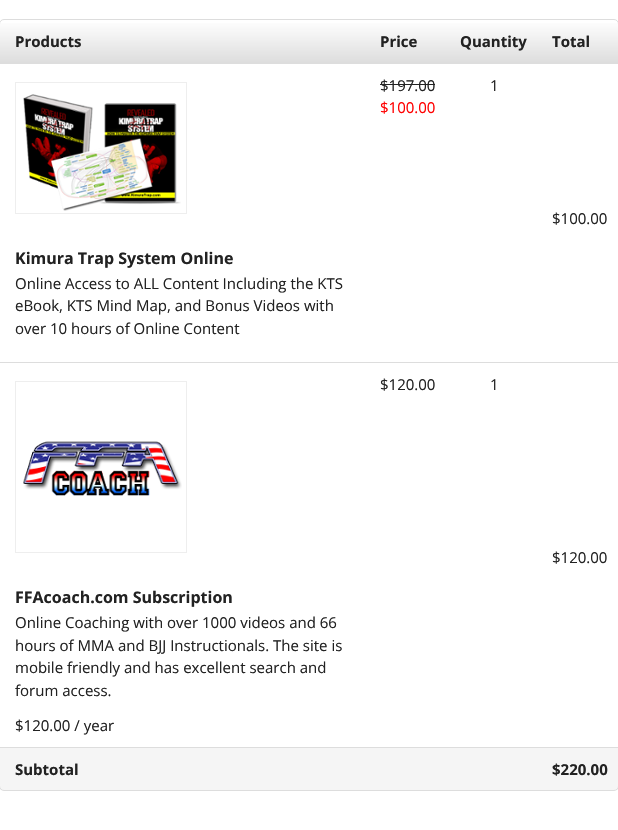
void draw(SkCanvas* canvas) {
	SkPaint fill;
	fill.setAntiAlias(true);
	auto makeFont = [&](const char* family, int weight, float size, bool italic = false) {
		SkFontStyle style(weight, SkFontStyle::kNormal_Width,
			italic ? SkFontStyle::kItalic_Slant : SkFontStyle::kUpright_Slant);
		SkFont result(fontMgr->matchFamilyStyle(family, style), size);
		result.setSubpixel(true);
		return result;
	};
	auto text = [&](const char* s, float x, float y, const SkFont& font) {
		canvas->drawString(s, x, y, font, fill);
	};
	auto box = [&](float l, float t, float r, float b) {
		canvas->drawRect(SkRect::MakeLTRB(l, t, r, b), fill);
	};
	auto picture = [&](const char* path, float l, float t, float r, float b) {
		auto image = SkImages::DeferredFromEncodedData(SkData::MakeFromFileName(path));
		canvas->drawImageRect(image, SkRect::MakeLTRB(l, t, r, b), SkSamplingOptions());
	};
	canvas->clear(0xFFFFFFFF);
	{
		const SkColor colors[] = {0xFFFFFFFF, 0xFFDDDDDD};
		const float stops[] = {0, 1};
		const SkPoint ends[] = {{183, 20}, {183, 63}};
		fill.setShader(SkGradientShader::MakeLinear(ends, colors, stops, 2, SkTileMode::kClamp));
		fill.setAlpha(255);
	}
	box(0, 23, 365, 63);
	{
		const SkColor colors[] = {0xFFFFFFFF, 0xFFDDDDDD};
		const float stops[] = {0, 1};
		const SkPoint ends[] = {{405, 20}, {405, 63}};
		fill.setShader(SkGradientShader::MakeLinear(ends, colors, stops, 2, SkTileMode::kClamp));
		fill.setAlpha(255);
	}
	box(365, 23, 445, 63);
	{
		const SkColor colors[] = {0xFFFFFFFF, 0xFFDDDDDD};
		const float stops[] = {0, 1};
		const SkPoint ends[] = {{491, 20}, {491, 63}};
		fill.setShader(SkGradientShader::MakeLinear(ends, colors, stops, 2, SkTileMode::kClamp));
		fill.setAlpha(255);
	}
	box(445, 23, 537, 63);
	{
		const SkColor colors[] = {0xFFFFFFFF, 0xFFDDDDDD};
		const float stops[] = {0, 1};
		const SkPoint ends[] = {{578, 20}, {578, 63}};
		fill.setShader(SkGradientShader::MakeLinear(ends, colors, stops, 2, SkTileMode::kClamp));
		fill.setAlpha(255);
	}
	box(537, 23, 618, 63);
	fill.setShader(nullptr);
	fill.setColor(0xFFDDDDDD);
	box(0, 63, 618, 64);
	fill.setStyle(SkPaint::kStroke_Style);
	fill.setStrokeWidth(1);
	fill.setColor(0xFFEEEEEE);
	canvas->drawRect(SkRect::MakeLTRB(15.5f, 82.5f, 186.5f, 213.5f), fill);
	picture("image0.png", 23, 94, 181, 211);
	fill.setStyle(SkPaint::kFill_Style);
	fill.setColor(0xFF222222);
	box(380, 84, 435, 85);
	fill.setColor(0xFFDDDDDD);
	box(0, 362, 618, 363);
	fill.setStyle(SkPaint::kStroke_Style);
	fill.setColor(0xFFEEEEEE);
	canvas->drawRect(SkRect::MakeLTRB(15.5f, 381.5f, 186.5f, 552.5f), fill);
	picture("image1.png", 23, 441, 182, 496);
	fill.setStyle(SkPaint::kFill_Style);
	fill.setColor(0xFFF5F5F5);
	box(0, 748, 618, 790);
	fill.setColor(0xFFDDDDDD);
	box(0, 747, 618, 748);
	fill.setStyle(SkPaint::kStroke_Style);
	canvas->drawRoundRect(SkRect::MakeLTRB(-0.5f, 19.5f, 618.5f, 790.5f), 4.5f, 4.5f, fill);
	auto font1 = makeFont("Open Sans", 700, 15);
	fill.setStyle(SkPaint::kFill_Style);
	fill.setColor(0xFF222222);
	text("Products", 15, 47, font1);
	text("Price", 380, 47, font1);
	text("Quantity", 460, 47, font1);
	text("Total", 552, 47, font1);
	auto font2 = makeFont("Open Sans", 400, 15);
	text("$197.00", 380, 91, font2);
	fill.setColor(0xFFFF0000);
	text("$100.00", 380, 113, font2);
	fill.setColor(0xFF222222);
	text("1", 490, 91, font2);
	text("$100.00", 552, 224, font2);
	auto font3 = makeFont("Open Sans", 700, 16);
	text("Kimura Trap System Online", 15, 264, font3);
	text("Online Access to ALL Content Including the KTS", 15, 289, font2);
	text("eBook, KTS Mind Map, and Bonus Videos with", 15, 311, font2);
	text("over 10 hours of Online Content", 15, 334, font2);
	text("$120.00", 380, 390, font2);
	text("1", 490, 390, font2);
	text("$120.00", 552, 563, font2);
	text("FFAcoach.com Subscription", 15, 603, font3);
	text("Online Coaching with over 1000 videos and 66", 15, 628, font2);
	text("hours of MMA and BJJ Instructionals. The site is", 15, 651, font2);
	text("mobile friendly and has excellent search and", 15, 673, font2);
	text("forum access.", 15, 696, font2);
	text("$120.00 / year", 15, 731, font2);
	text("Subtotal", 15, 775, font1);
	text("$220.00", 552, 775, font1);
}
